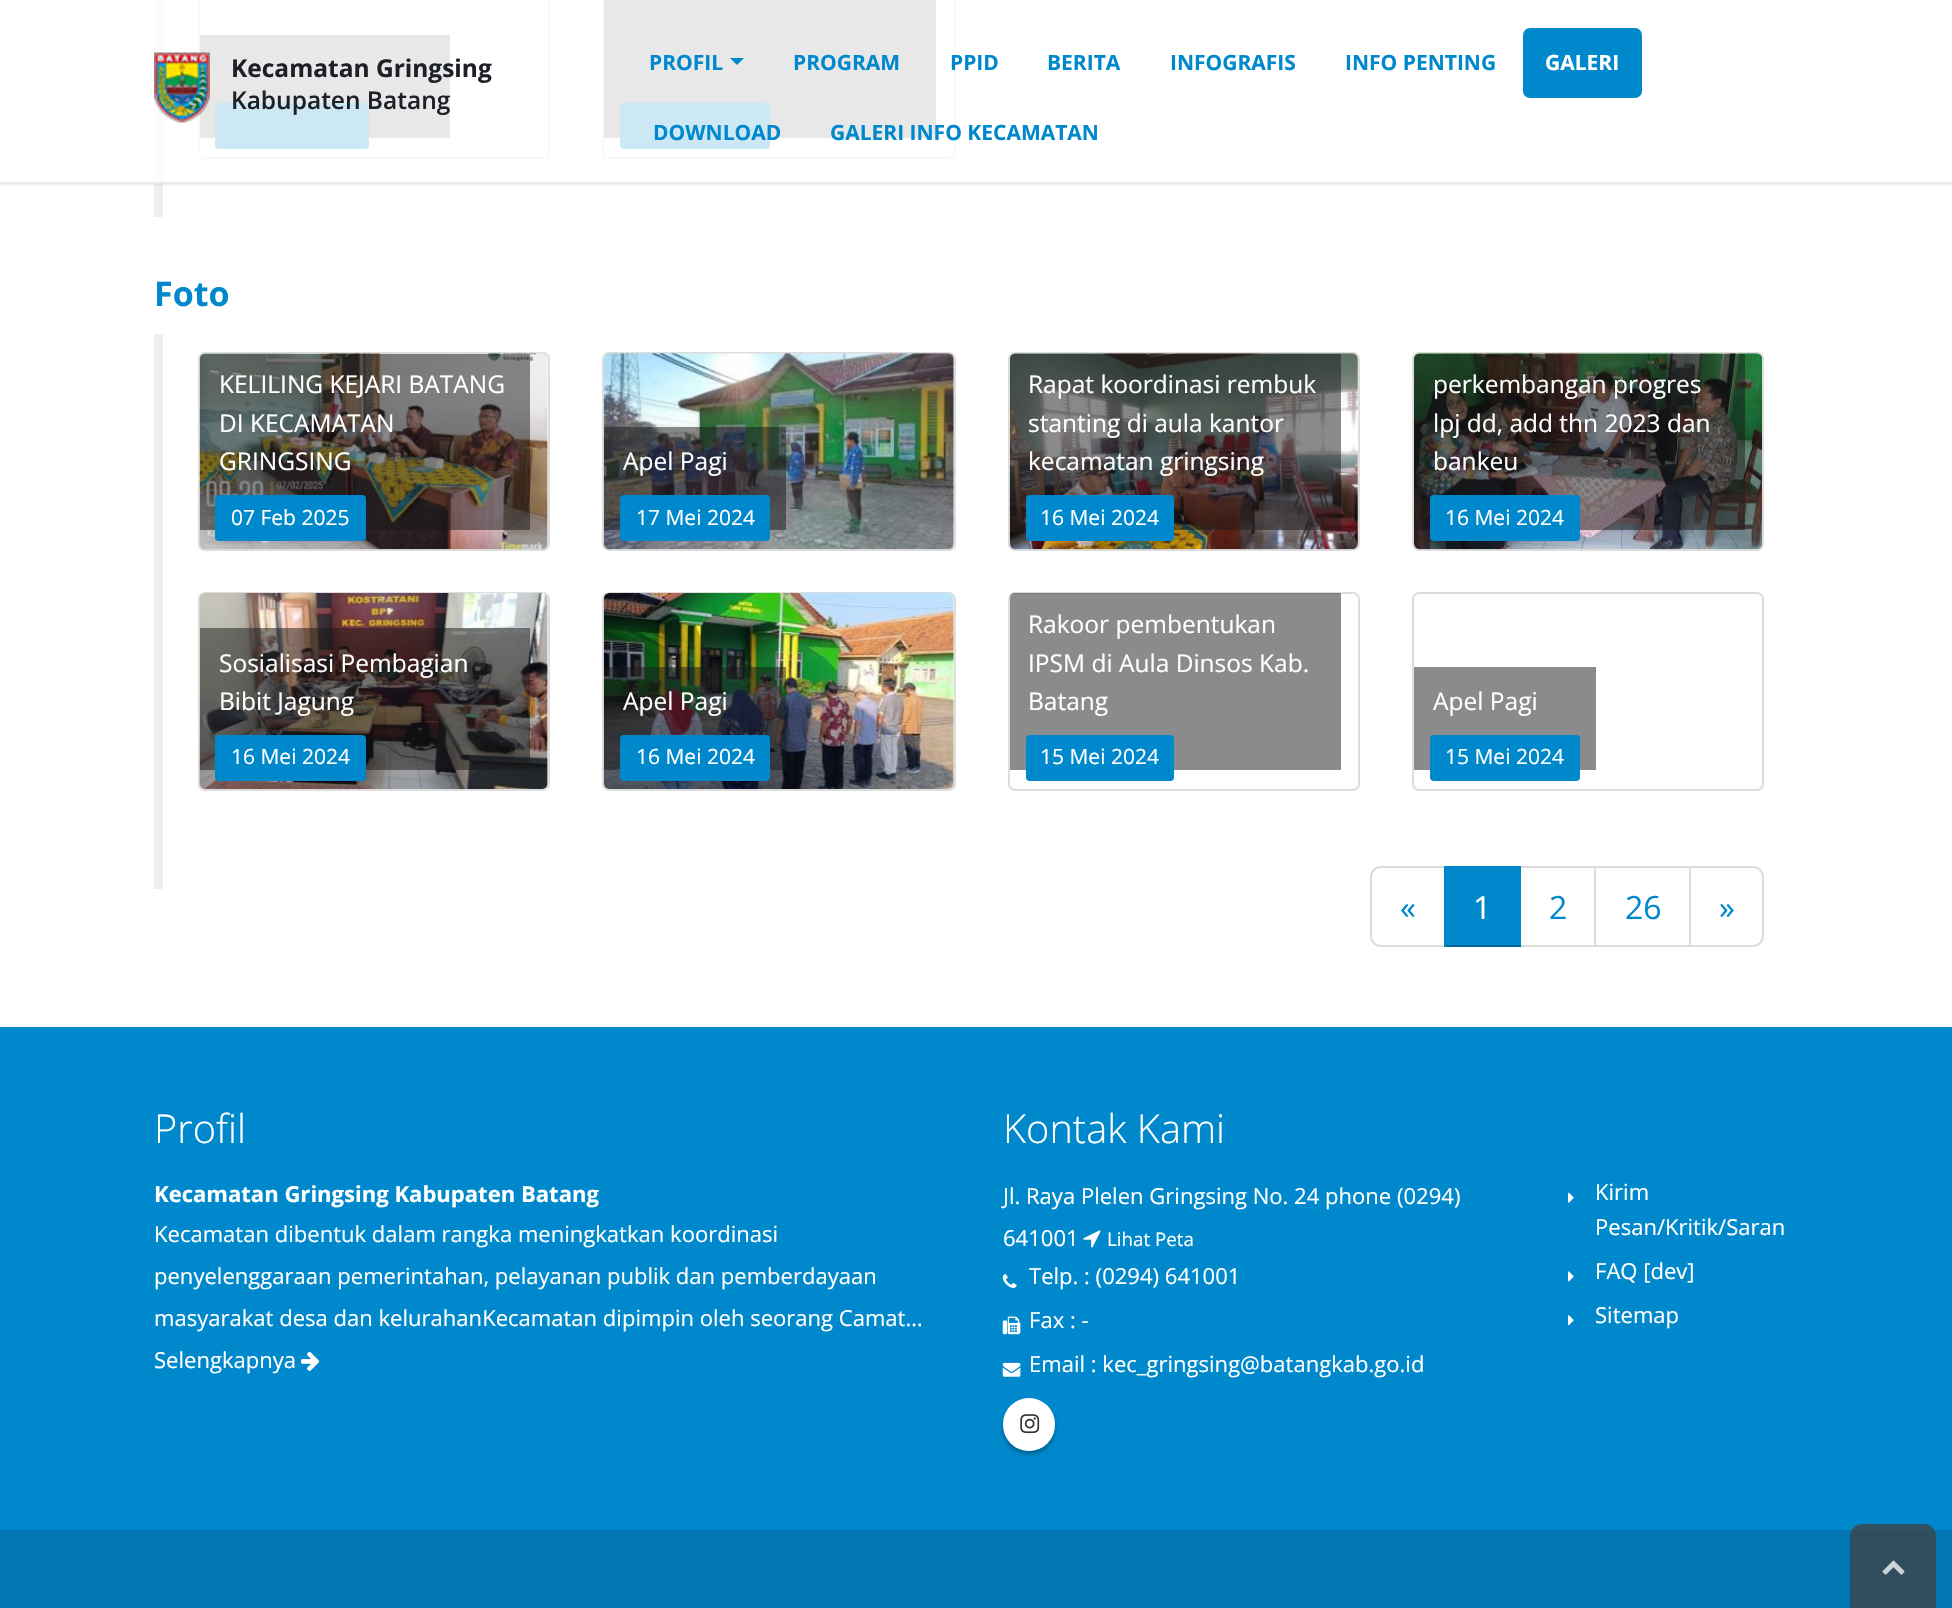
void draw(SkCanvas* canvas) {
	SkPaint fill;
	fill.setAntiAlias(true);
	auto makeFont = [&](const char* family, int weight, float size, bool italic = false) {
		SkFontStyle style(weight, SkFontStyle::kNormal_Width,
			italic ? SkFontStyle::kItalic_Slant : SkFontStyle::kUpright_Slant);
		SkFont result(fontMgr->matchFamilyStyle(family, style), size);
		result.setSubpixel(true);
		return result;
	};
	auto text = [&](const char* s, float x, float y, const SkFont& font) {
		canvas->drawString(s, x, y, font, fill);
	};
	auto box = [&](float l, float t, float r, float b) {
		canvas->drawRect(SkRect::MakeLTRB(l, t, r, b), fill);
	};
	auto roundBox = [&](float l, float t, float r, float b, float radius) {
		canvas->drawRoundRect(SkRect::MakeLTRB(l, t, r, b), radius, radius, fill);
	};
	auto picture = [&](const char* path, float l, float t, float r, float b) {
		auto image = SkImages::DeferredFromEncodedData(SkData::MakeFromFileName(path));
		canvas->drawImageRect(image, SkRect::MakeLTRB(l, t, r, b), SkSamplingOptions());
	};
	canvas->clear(0xFFFFFFFF);
	fill.setColor(0xFFEEEEEE);
	box(154, 0, 163, 217);
	fill.setStyle(SkPaint::kStroke_Style);
	fill.setStrokeWidth(2);
	fill.setColor(0xFFDDDDDD);
	canvas->drawRoundRect(SkRect::MakeLTRB(199, -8, 549, 158), 6, 6, fill);
	fill.setStyle(SkPaint::kFill_Style);
	fill.setColor(0xFF8B8B8B);
	box(200, 35, 450, 138);
	fill.setColor(0xFF0088CC);
	roundBox(215, 103, 369, 149, 4);
	fill.setStyle(SkPaint::kStroke_Style);
	fill.setColor(0xFFDDDDDD);
	canvas->drawRoundRect(SkRect::MakeLTRB(603, -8, 955, 158), 6, 6, fill);
	fill.setStyle(SkPaint::kFill_Style);
	fill.setColor(0xFF8B8B8B);
	box(604, 0, 936, 138);
	fill.setColor(0xFF0088CC);
	roundBox(620, 103, 770, 149, 4);
	canvas->save();
	canvas->clipRect(SkRect::MakeLTRB(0, 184, 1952, 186));
	fill.setColor(0x1A000000);
	fill.setMaskFilter(SkMaskFilter::MakeBlur(kNormal_SkBlurStyle, 2.5f));
	canvas->drawRect(SkRect::MakeLTRB(0, -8, 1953, 184), fill);
	fill.setMaskFilter(nullptr);
	canvas->restore();
	fill.setColor(0xCCFFFFFF);
	box(154, 0, 956, 182);
	fill.setColor(0xFFE9E9E9);
	box(0, 182, 1952, 184);
	picture("image0.png", 154, 52, 210, 123);
	fill.setColor(0xFF0088CC);
	canvas->drawPath(SkPathBuilder().moveTo(730, 58).lineTo(744, 58).lineTo(737, 65).close().detach(), fill);
	roundBox(1523, 28, 1642, 98, 7);
	fill.setColor(0xFFEEEEEE);
	box(154, 334, 163, 889);
	fill.setStyle(SkPaint::kStroke_Style);
	fill.setColor(0xFFDDDDDD);
	canvas->drawRoundRect(SkRect::MakeLTRB(199, 353, 549, 550), 6, 6, fill);
	picture("image1.png", 199, 353, 548, 550);
	fill.setStyle(SkPaint::kFill_Style);
	fill.setColor(0x80171717);
	canvas->drawPath(SkPathBuilder().moveTo(205, 354).lineTo(530, 354).lineTo(530, 530).lineTo(200, 530).lineTo(200, 359).cubicTo(200, 356, 202, 354, 205, 354).close().detach(), fill);
	fill.setColor(0xFF0088CC);
	roundBox(215, 495, 366, 541, 4);
	fill.setStyle(SkPaint::kStroke_Style);
	fill.setColor(0xFFDDDDDD);
	canvas->drawRoundRect(SkRect::MakeLTRB(603, 353, 955, 550), 6, 6, fill);
	picture("image2.png", 603, 353, 954, 550);
	fill.setStyle(SkPaint::kFill_Style);
	fill.setColor(0x80171717);
	box(604, 427, 786, 530);
	fill.setColor(0xFF0088CC);
	roundBox(620, 495, 770, 541, 4);
	fill.setStyle(SkPaint::kStroke_Style);
	fill.setColor(0xFFDDDDDD);
	canvas->drawRoundRect(SkRect::MakeLTRB(1009, 353, 1359, 550), 6, 6, fill);
	picture("image3.png", 1009, 353, 1358, 550);
	fill.setStyle(SkPaint::kFill_Style);
	fill.setColor(0x80171717);
	canvas->drawPath(SkPathBuilder().moveTo(1015, 354).lineTo(1341, 354).lineTo(1341, 530).lineTo(1010, 530).lineTo(1010, 359).cubicTo(1010, 356, 1012, 354, 1015, 354).close().detach(), fill);
	fill.setColor(0xFF0088CC);
	roundBox(1026, 495, 1174, 541, 4);
	fill.setStyle(SkPaint::kStroke_Style);
	fill.setColor(0xFFDDDDDD);
	canvas->drawRoundRect(SkRect::MakeLTRB(1413, 353, 1763, 550), 6, 6, fill);
	picture("image4.png", 1414, 353, 1762, 550);
	fill.setStyle(SkPaint::kFill_Style);
	fill.setColor(0x80171717);
	canvas->drawPath(SkPathBuilder().moveTo(1419, 354).lineTo(1745, 354).lineTo(1745, 530).lineTo(1414, 530).lineTo(1414, 359).cubicTo(1414, 356, 1416, 354, 1419, 354).close().detach(), fill);
	fill.setColor(0xFF0088CC);
	roundBox(1430, 495, 1580, 541, 4);
	fill.setStyle(SkPaint::kStroke_Style);
	fill.setColor(0xFFDDDDDD);
	canvas->drawRoundRect(SkRect::MakeLTRB(199, 593, 549, 790), 6, 6, fill);
	picture("image5.png", 199, 593, 548, 789);
	fill.setStyle(SkPaint::kFill_Style);
	fill.setColor(0x80171717);
	box(200, 628, 530, 770);
	fill.setColor(0xFF0088CC);
	roundBox(215, 735, 366, 781, 4);
	fill.setStyle(SkPaint::kStroke_Style);
	fill.setColor(0xFFDDDDDD);
	canvas->drawRoundRect(SkRect::MakeLTRB(603, 593, 955, 790), 6, 6, fill);
	picture("image6.png", 603, 593, 954, 789);
	fill.setStyle(SkPaint::kFill_Style);
	fill.setColor(0x80171717);
	box(604, 667, 786, 770);
	fill.setColor(0xFF0088CC);
	roundBox(620, 735, 770, 781, 4);
	fill.setStyle(SkPaint::kStroke_Style);
	fill.setColor(0xFFDDDDDD);
	canvas->drawRoundRect(SkRect::MakeLTRB(1009, 593, 1359, 790), 6, 6, fill);
	fill.setStyle(SkPaint::kFill_Style);
	fill.setColor(0x80171717);
	canvas->drawPath(SkPathBuilder().moveTo(1015, 593).lineTo(1341, 593).lineTo(1341, 770).lineTo(1010, 770).lineTo(1010, 598).cubicTo(1010, 595, 1012, 593, 1015, 593).close().detach(), fill);
	fill.setColor(0xFF0088CC);
	roundBox(1026, 735, 1174, 781, 4);
	fill.setStyle(SkPaint::kStroke_Style);
	fill.setColor(0xFFDDDDDD);
	canvas->drawRoundRect(SkRect::MakeLTRB(1413, 593, 1763, 790), 6, 6, fill);
	fill.setStyle(SkPaint::kFill_Style);
	fill.setColor(0xFF8B8B8B);
	box(1414, 667, 1596, 770);
	fill.setColor(0xFF0088CC);
	roundBox(1430, 735, 1580, 781, 4);
	fill.setStyle(SkPaint::kStroke_Style);
	fill.setColor(0xFFDDDDDD);
	canvas->drawPath(SkPathBuilder().moveTo(1381, 867).lineTo(1445, 867).lineTo(1445, 946).lineTo(1381, 946).cubicTo(1375.5f, 946, 1371, 941.5f, 1371, 936).lineTo(1371, 877).cubicTo(1371, 871.5f, 1375.5f, 867, 1381, 867).close().detach(), fill);
	canvas->drawRect(SkRect::MakeLTRB(1520, 867, 1595, 946), fill);
	fill.setStyle(SkPaint::kFill_Style);
	fill.setColor(0xFF0088CC);
	box(1446, 866, 1521, 945);
	fill.setColor(0xFF006699);
	box(1444, 945, 1521, 947);
	fill.setColor(0xFF0088CC);
	box(1444, 866, 1446, 947);
	fill.setStyle(SkPaint::kStroke_Style);
	fill.setColor(0xFFDDDDDD);
	canvas->drawRect(SkRect::MakeLTRB(1595, 867, 1690, 946), fill);
	fill.setStyle(SkPaint::kFill_Style);
	fill.setColor(0xFFFFFFFF);
	canvas->drawPath(SkPathBuilder().moveTo(1690, 867).lineTo(1753, 867).cubicTo(1758.5f, 867, 1763, 871.5f, 1763, 877).lineTo(1763, 936).cubicTo(1763, 941.5f, 1758.5f, 946, 1753, 946).lineTo(1690, 946).close().detach(), fill);
	fill.setStyle(SkPaint::kStroke_Style);
	fill.setColor(0xFFDDDDDD);
	canvas->drawPath(SkPathBuilder().moveTo(1690, 867).lineTo(1753, 867).cubicTo(1758.5f, 867, 1763, 871.5f, 1763, 877).lineTo(1763, 936).cubicTo(1763, 941.5f, 1758.5f, 946, 1753, 946).lineTo(1690, 946).close().detach(), fill);
	fill.setStyle(SkPaint::kFill_Style);
	fill.setColor(0xFF0088CC);
	box(0, 1027, 1952, 1530);
	picture("image7.png", 301, 1351, 320, 1371);
	picture("image8.png", 1083, 1230, 1101, 1248);
	picture("image9.png", 1002, 1274, 1017, 1288);
	picture("image10.png", 1002, 1316, 1021, 1335);
	picture("image11.png", 1002, 1362, 1021, 1377);
	fill.setColor(0x4D000000);
	fill.setMaskFilter(SkMaskFilter::MakeBlur(kNormal_SkBlurStyle, 2));
	canvas->drawRoundRect(SkRect::MakeLTRB(1003, 1402, 1055, 1454), 26, 26, fill);
	fill.setMaskFilter(nullptr);
	fill.setColor(0xFFFFFFFF);
	roundBox(1003, 1398, 1055, 1451, 26);
	picture("image12.png", 1020, 1414, 1040, 1434);
	picture("image13.png", 1568, 1192, 1574, 1203);
	picture("image14.png", 1568, 1271, 1574, 1282);
	picture("image15.png", 1568, 1315, 1574, 1326);
	fill.setColor(0xFF0077B3);
	box(0, 1530, 1952, 1608);
	fill.setColor(0xBF404040);
	canvas->drawPath(SkPathBuilder().moveTo(1862, 1524).lineTo(1924, 1524).cubicTo(1930.5f, 1524, 1936, 1529.5f, 1936, 1536).lineTo(1936, 1608).lineTo(1850, 1608).lineTo(1850, 1536).cubicTo(1850, 1529.5f, 1855.5f, 1524, 1862, 1524).close().detach(), fill);
	picture("image16.png", 1882, 1560, 1905, 1575);
	auto font1 = makeFont("Open Sans", 700, 24.5f);
	fill.setColor(0xFF1D2127);
	text("Kecamatan Gringsing", 231, 77, font1);
	auto font2 = makeFont("Open Sans", 600, 24.5f);
	text("Kabupaten Batang", 231, 109, font2);
	auto font3 = makeFont("Open Sans", 700, 21);
	fill.setColor(0xFF0088CC);
	text("PROFIL", 649, 70, font3);
	text("PROGRAM", 793, 70, font3);
	text("PPID", 950, 70, font3);
	text("BERITA", 1047, 70, font3);
	text("INFOGRAFIS", 1170, 70, font3);
	text("INFO PENTING", 1345, 70, font3);
	fill.setColor(0xFFFFFFFF);
	text("GALERI", 1545, 70, font3);
	fill.setColor(0xFF0088CC);
	text("DOWNLOAD", 653, 140, font3);
	text("GALERI INFO KECAMATAN", 830, 140, font3);
	auto font4 = makeFont("Open Sans", 700, 34);
	text("Foto", 154, 306, font4);
	auto font5 = makeFont("Open Sans", 400, 24.5f);
	fill.setColor(0xFFFFFFFF);
	text("KELILING KEJARI BATANG", 219, 393, font5);
	text("DI KECAMATAN", 219, 432, font5);
	text("GRINGSING", 219, 470, font5);
	auto font6 = makeFont("Open Sans", 400, 21);
	text("07 Feb 2025", 231, 525, font6);
	text("Apel Pagi", 623, 470, font5);
	text("17 Mei 2024", 636, 525, font6);
	text("Rapat koordinasi rembuk", 1028, 393, font5);
	text("stanting di aula kantor", 1028, 432, font5);
	text("kecamatan gringsing", 1028, 470, font5);
	text("16 Mei 2024", 1040, 525, font6);
	text("perkembangan progres", 1433, 393, font5);
	text("lpj dd, add thn 2023 dan", 1433, 432, font5);
	text("bankeu", 1433, 470, font5);
	text("16 Mei 2024", 1445, 525, font6);
	text("Sosialisasi Pembagian", 219, 672, font5);
	text("Bibit Jagung", 219, 710, font5);
	text("16 Mei 2024", 231, 764, font6);
	text("Apel Pagi", 623, 710, font5);
	text("16 Mei 2024", 636, 764, font6);
	text("Rakoor pembentukan", 1028, 633, font5);
	text("IPSM di Aula Dinsos Kab.", 1028, 672, font5);
	text("Batang", 1028, 710, font5);
	text("15 Mei 2024", 1040, 764, font6);
	text("Apel Pagi", 1433, 710, font5);
	text("15 Mei 2024", 1445, 764, font6);
	auto font7 = makeFont("Open Sans", 400, 32);
	fill.setColor(0xFF0088CC);
	text("«", 1400, 919, font7);
	fill.setColor(0xFFFFFFFF);
	text("1", 1473, 919, font7);
	fill.setColor(0xFF0088CC);
	text("2", 1549, 919, font7);
	text("26", 1625, 919, font7);
	text("»", 1719, 919, font7);
	auto font8 = makeFont("Open Sans", 300, 39.75f);
	fill.setColor(0xFFFFFFFF);
	text("Profil", 154, 1143, font8);
	auto font9 = makeFont("Open Sans", 700, 22.05f);
	text("Kecamatan Gringsing Kabupaten Batang", 154, 1202, font9);
	auto font10 = makeFont("Open Sans", 400, 22.05f);
	text("Kecamatan dibentuk dalam rangka meningkatkan koordinasi", 154, 1242, font10);
	text("penyelenggaraan pemerintahan, pelayanan publik dan pemberdayaan", 154, 1284, font10);
	text("masyarakat desa dan kelurahanKecamatan dipimpin oleh seorang Camat…", 154, 1326, font10);
	text("Selengkapnya", 154, 1368, font10);
	text("Kontak Kami", 1003, 1143, font8);
	text("Jl. Raya Plelen Gringsing No. 24 phone (0294)", 1003, 1204, font10);
	text("641001", 1003, 1246, font10);
	auto font11 = makeFont("Open Sans", 400, 18.75f);
	text("Lihat Peta", 1107, 1246, font11);
	text("Telp. : (0294) 641001", 1029, 1284, font10);
	text("Fax : -", 1029, 1328, font10);
	text("Email : kec_gringsing@batangkab.go.id", 1029, 1372, font10);
	text("Kirim", 1595, 1200, font10);
	text("Pesan/Kritik/Saran", 1595, 1235, font10);
	text("FAQ [dev]", 1595, 1279, font10);
	text("Sitemap", 1595, 1323, font10);
}
